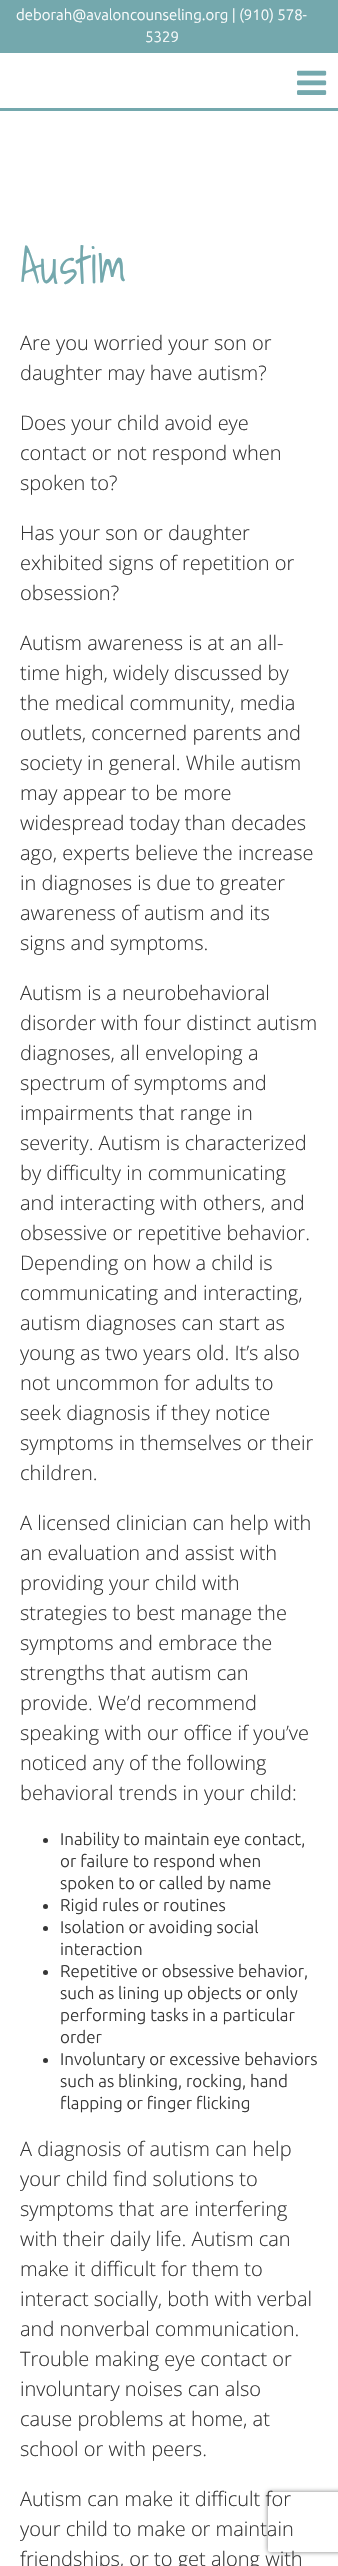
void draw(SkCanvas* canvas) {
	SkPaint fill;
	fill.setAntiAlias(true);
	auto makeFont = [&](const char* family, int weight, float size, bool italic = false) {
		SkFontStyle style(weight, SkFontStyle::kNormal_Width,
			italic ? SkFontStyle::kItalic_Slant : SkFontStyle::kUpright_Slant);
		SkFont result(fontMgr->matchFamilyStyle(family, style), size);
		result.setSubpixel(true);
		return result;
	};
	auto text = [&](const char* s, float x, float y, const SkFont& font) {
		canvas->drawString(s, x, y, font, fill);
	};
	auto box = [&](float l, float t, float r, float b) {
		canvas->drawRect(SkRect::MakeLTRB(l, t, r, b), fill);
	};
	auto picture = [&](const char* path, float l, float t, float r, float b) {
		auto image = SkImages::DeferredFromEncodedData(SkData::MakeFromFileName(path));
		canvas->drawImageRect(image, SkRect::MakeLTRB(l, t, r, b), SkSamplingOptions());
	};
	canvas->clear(0xFFFFFFFF);
	fill.setColor(0xFF74A8AD);
	box(0, 0, 338, 53);
	box(0, 108, 338, 111);
	picture("image0.png", 297, 70, 327, 95);
	fill.setColor(0xFF363636);
	canvas->drawCircle(45.5f, 1840.5f, 2.5f, fill);
	canvas->drawCircle(45.5f, 1906.5f, 2.5f, fill);
	canvas->drawCircle(45.5f, 1928.5f, 2.5f, fill);
	canvas->drawCircle(45.5f, 1972.5f, 2.5f, fill);
	canvas->drawCircle(45.5f, 2060.5f, 2.5f, fill);
	canvas->save();
	canvas->clipPath(SkPathBuilder(SkPathFillType::kEvenOdd).moveTo(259, 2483).lineTo(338, 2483).lineTo(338, 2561).lineTo(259, 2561).close().moveTo(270, 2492).lineTo(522, 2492).cubicTo(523, 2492, 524, 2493, 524, 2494).lineTo(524, 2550).cubicTo(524, 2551, 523, 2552, 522, 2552).lineTo(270, 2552).cubicTo(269, 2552, 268, 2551, 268, 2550).lineTo(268, 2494).cubicTo(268, 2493, 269, 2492, 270, 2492).close().detach(), true);
	fill.setColor(0xFF808080);
	fill.setMaskFilter(SkMaskFilter::MakeBlur(kNormal_SkBlurStyle, 2.5f));
	canvas->drawRoundRect(SkRect::MakeLTRB(268, 2492, 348, 2552), 2, 2, fill);
	fill.setMaskFilter(nullptr);
	canvas->restore();
	auto font1 = makeFont("Ubuntu", 300, 15);
	fill.setColor(0xFFFFFFFF);
	text("deborah@avaloncounseling.org | (910) 578-", 16, 20, font1);
	text("5329", 145, 42, font1);
	auto font2 = makeFont("Shadows Into Light", 300, 50);
	fill.setColor(0xFF74A8AD);
	text("Austim", 20, 283, font2);
	auto font3 = makeFont("Open Sans", 300, 20);
	fill.setColor(0xFF363636);
	text("Are you worried your son or", 20, 350, font3);
	text("daughter may have autism?", 20, 380, font3);
	text("Does your child avoid eye", 20, 430, font3);
	text("contact or not respond when", 20, 460, font3);
	text("spoken to?", 20, 490, font3);
	text("Has your son or daughter", 20, 540, font3);
	text("exhibited signs of repetition or", 20, 570, font3);
	text("obsession?", 20, 600, font3);
	text("Autism awareness is at an all-", 20, 650, font3);
	text("time high, widely discussed by", 20, 680, font3);
	text("the medical community, media", 20, 710, font3);
	text("outlets, concerned parents and", 20, 740, font3);
	text("society in general. While autism", 20, 770, font3);
	text("may appear to be more", 20, 800, font3);
	text("widespread today than decades", 20, 830, font3);
	text("ago, experts believe the increase", 20, 860, font3);
	text("in diagnoses is due to greater", 20, 890, font3);
	text("awareness of autism and its", 20, 920, font3);
	text("signs and symptoms.", 20, 950, font3);
	text("Autism is a neurobehavioral", 20, 1000, font3);
	text("disorder with four distinct autism", 20, 1030, font3);
	text("diagnoses, all enveloping a", 20, 1060, font3);
	text("spectrum of symptoms and", 20, 1090, font3);
	text("impairments that range in", 20, 1120, font3);
	text("severity. Autism is characterized", 20, 1150, font3);
	text("by difficulty in communicating", 20, 1180, font3);
	text("and interacting with others, and", 20, 1210, font3);
	text("obsessive or repetitive behavior.", 20, 1240, font3);
	text("Depending on how a child is", 20, 1270, font3);
	text("communicating and interacting,", 20, 1300, font3);
	text("autism diagnoses can start as", 20, 1330, font3);
	text("young as two years old. It’s also", 20, 1360, font3);
	text("not uncommon for adults to", 20, 1390, font3);
	text("seek diagnosis if they notice", 20, 1420, font3);
	text("symptoms in themselves or their", 20, 1450, font3);
	text("children.", 20, 1480, font3);
	text("A licensed clinician can help with", 20, 1530, font3);
	text("an evaluation and assist with", 20, 1560, font3);
	text("providing your child with", 20, 1590, font3);
	text("strategies to best manage the", 20, 1620, font3);
	text("symptoms and embrace the", 20, 1650, font3);
	text("strengths that autism can", 20, 1680, font3);
	text("provide. We’d recommend", 20, 1710, font3);
	text("speaking with our office if you’ve", 20, 1740, font3);
	text("noticed any of the following", 20, 1770, font3);
	text("behavioral trends in your child:", 20, 1800, font3);
	auto font4 = makeFont("Ubuntu", 300, 17);
	text("Inability to maintain eye contact,", 60, 1845, font4);
	text("or failure to respond when", 60, 1867, font4);
	text("spoken to or called by name", 60, 1889, font4);
	text("Rigid rules or routines", 60, 1911, font4);
	text("Isolation or avoiding social", 60, 1933, font4);
	text("interaction", 60, 1955, font4);
	text("Repetitive or obsessive behavior,", 60, 1977, font4);
	text("such as lining up objects or only", 60, 1999, font4);
	text("performing tasks in a particular", 60, 2021, font4);
	text("order", 60, 2043, font4);
	text("Involuntary or excessive behaviors", 60, 2065, font4);
	text("such as blinking, rocking, hand", 60, 2087, font4);
	text("flapping or finger flicking", 60, 2109, font4);
	text("A diagnosis of autism can help", 20, 2156, font3);
	text("your child find solutions to", 20, 2186, font3);
	text("symptoms that are interfering", 20, 2216, font3);
	text("with their daily life. Autism can", 20, 2246, font3);
	text("make it difficult for them to", 20, 2276, font3);
	text("interact socially, both with verbal", 20, 2306, font3);
	text("and nonverbal communication.", 20, 2336, font3);
	text("Trouble making eye contact or", 20, 2366, font3);
	text("involuntary noises can also", 20, 2396, font3);
	text("cause problems at home, at", 20, 2426, font3);
	text("school or with peers.", 20, 2456, font3);
	text("Autism can make it difficult for", 20, 2506, font3);
	text("your child to make or maintain", 20, 2536, font3);
	text("friendships, or to get along with", 20, 2566, font3);
}
